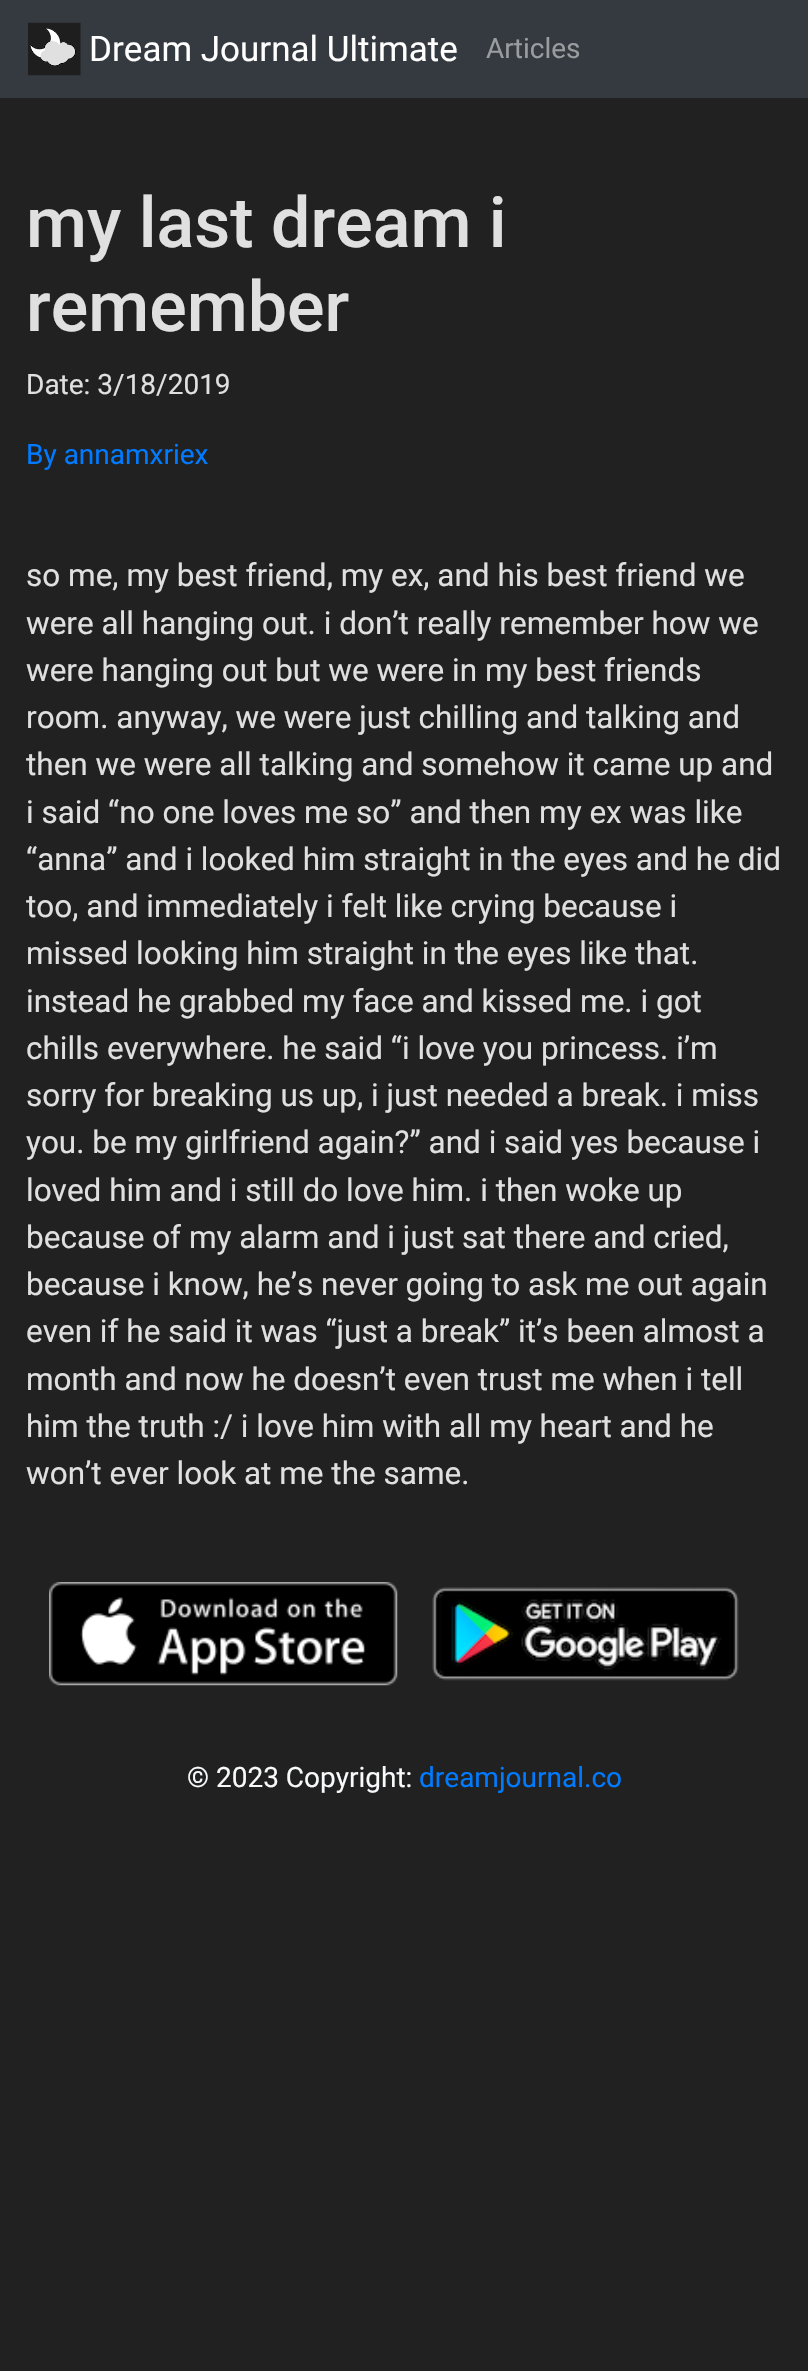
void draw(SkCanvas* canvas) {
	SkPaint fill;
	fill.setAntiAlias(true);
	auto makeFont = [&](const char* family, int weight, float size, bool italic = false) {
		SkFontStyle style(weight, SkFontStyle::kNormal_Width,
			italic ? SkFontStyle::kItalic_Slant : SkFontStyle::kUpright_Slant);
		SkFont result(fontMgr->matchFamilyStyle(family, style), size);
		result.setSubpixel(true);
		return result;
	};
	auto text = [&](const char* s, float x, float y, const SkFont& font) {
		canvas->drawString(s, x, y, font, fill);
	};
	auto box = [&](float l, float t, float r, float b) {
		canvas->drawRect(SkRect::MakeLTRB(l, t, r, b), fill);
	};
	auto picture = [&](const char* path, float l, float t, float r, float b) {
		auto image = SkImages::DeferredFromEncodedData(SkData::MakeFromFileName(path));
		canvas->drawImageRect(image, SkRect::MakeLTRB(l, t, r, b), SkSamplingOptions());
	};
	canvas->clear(0xFF212121);
	fill.setColor(0xFF343A40);
	box(0, 0, 808, 98);
	picture("image0.png", 28, 22, 81, 76);
	picture("image1.png", 49, 1582, 398, 1686);
	picture("image2.png", 432, 1587, 739, 1681);
	auto font1 = makeFont("Roboto", 400, 35);
	fill.setColor(0xFFFFFFFF);
	text("Dream Journal Ultimate", 89, 61, font1);
	auto font2 = makeFont("Roboto", 400, 28);
	fill.setColor(0xFF9A9DA0);
	text("Articles", 486, 58, font2);
	auto font3 = makeFont("Roboto", 500, 70);
	fill.setColor(0xFFE0E0E0);
	text("my last dream i", 26, 247, font3);
	text("remember", 26, 331, font3);
	text("Date: 3/18/2019", 26, 394, font2);
	fill.setColor(0xFF007BFF);
	text("By annamxriex", 26, 464, font2);
	auto font4 = makeFont("Roboto", 400, 31.5f);
	fill.setColor(0xFFE0E0E0);
	text("so me, my best friend, my ex, and his best friend we", 26, 586, font4);
	text("were all hanging out. i don’t really remember how we", 26, 634, font4);
	text("were hanging out but we were in my best friends", 26, 681, font4);
	text("room. anyway, we were just chilling and talking and", 26, 728, font4);
	text("then we were all talking and somehow it came up and", 26, 775, font4);
	text("i said “no one loves me so” and then my ex was like", 26, 823, font4);
	text("“anna” and i looked him straight in the eyes and he did", 26, 870, font4);
	text("too, and immediately i felt like crying because i", 26, 917, font4);
	text("missed looking him straight in the eyes like that.", 26, 964, font4);
	text("instead he grabbed my face and kissed me. i got", 26, 1012, font4);
	text("chills everywhere. he said “i love you princess. i’m", 26, 1059, font4);
	text("sorry for breaking us up, i just needed a break. i miss", 26, 1106, font4);
	text("you. be my girlfriend again?” and i said yes because i", 26, 1153, font4);
	text("loved him and i still do love him. i then woke up", 26, 1201, font4);
	text("because of my alarm and i just sat there and cried,", 26, 1248, font4);
	text("because i know, he’s never going to ask me out again", 26, 1295, font4);
	text("even if he said it was “just a break” it’s been almost a", 26, 1342, font4);
	text("month and now he doesn’t even trust me when i tell", 26, 1390, font4);
	text("him the truth :/ i love him with all my heart and he", 26, 1437, font4);
	text("won’t ever look at me the same.", 26, 1484, font4);
	fill.setColor(0xFFF8F9FA);
	text("© 2023 Copyright:", 187, 1787, font2);
	fill.setColor(0xFF007BFF);
	text("dreamjournal.co", 419, 1787, font2);
}
